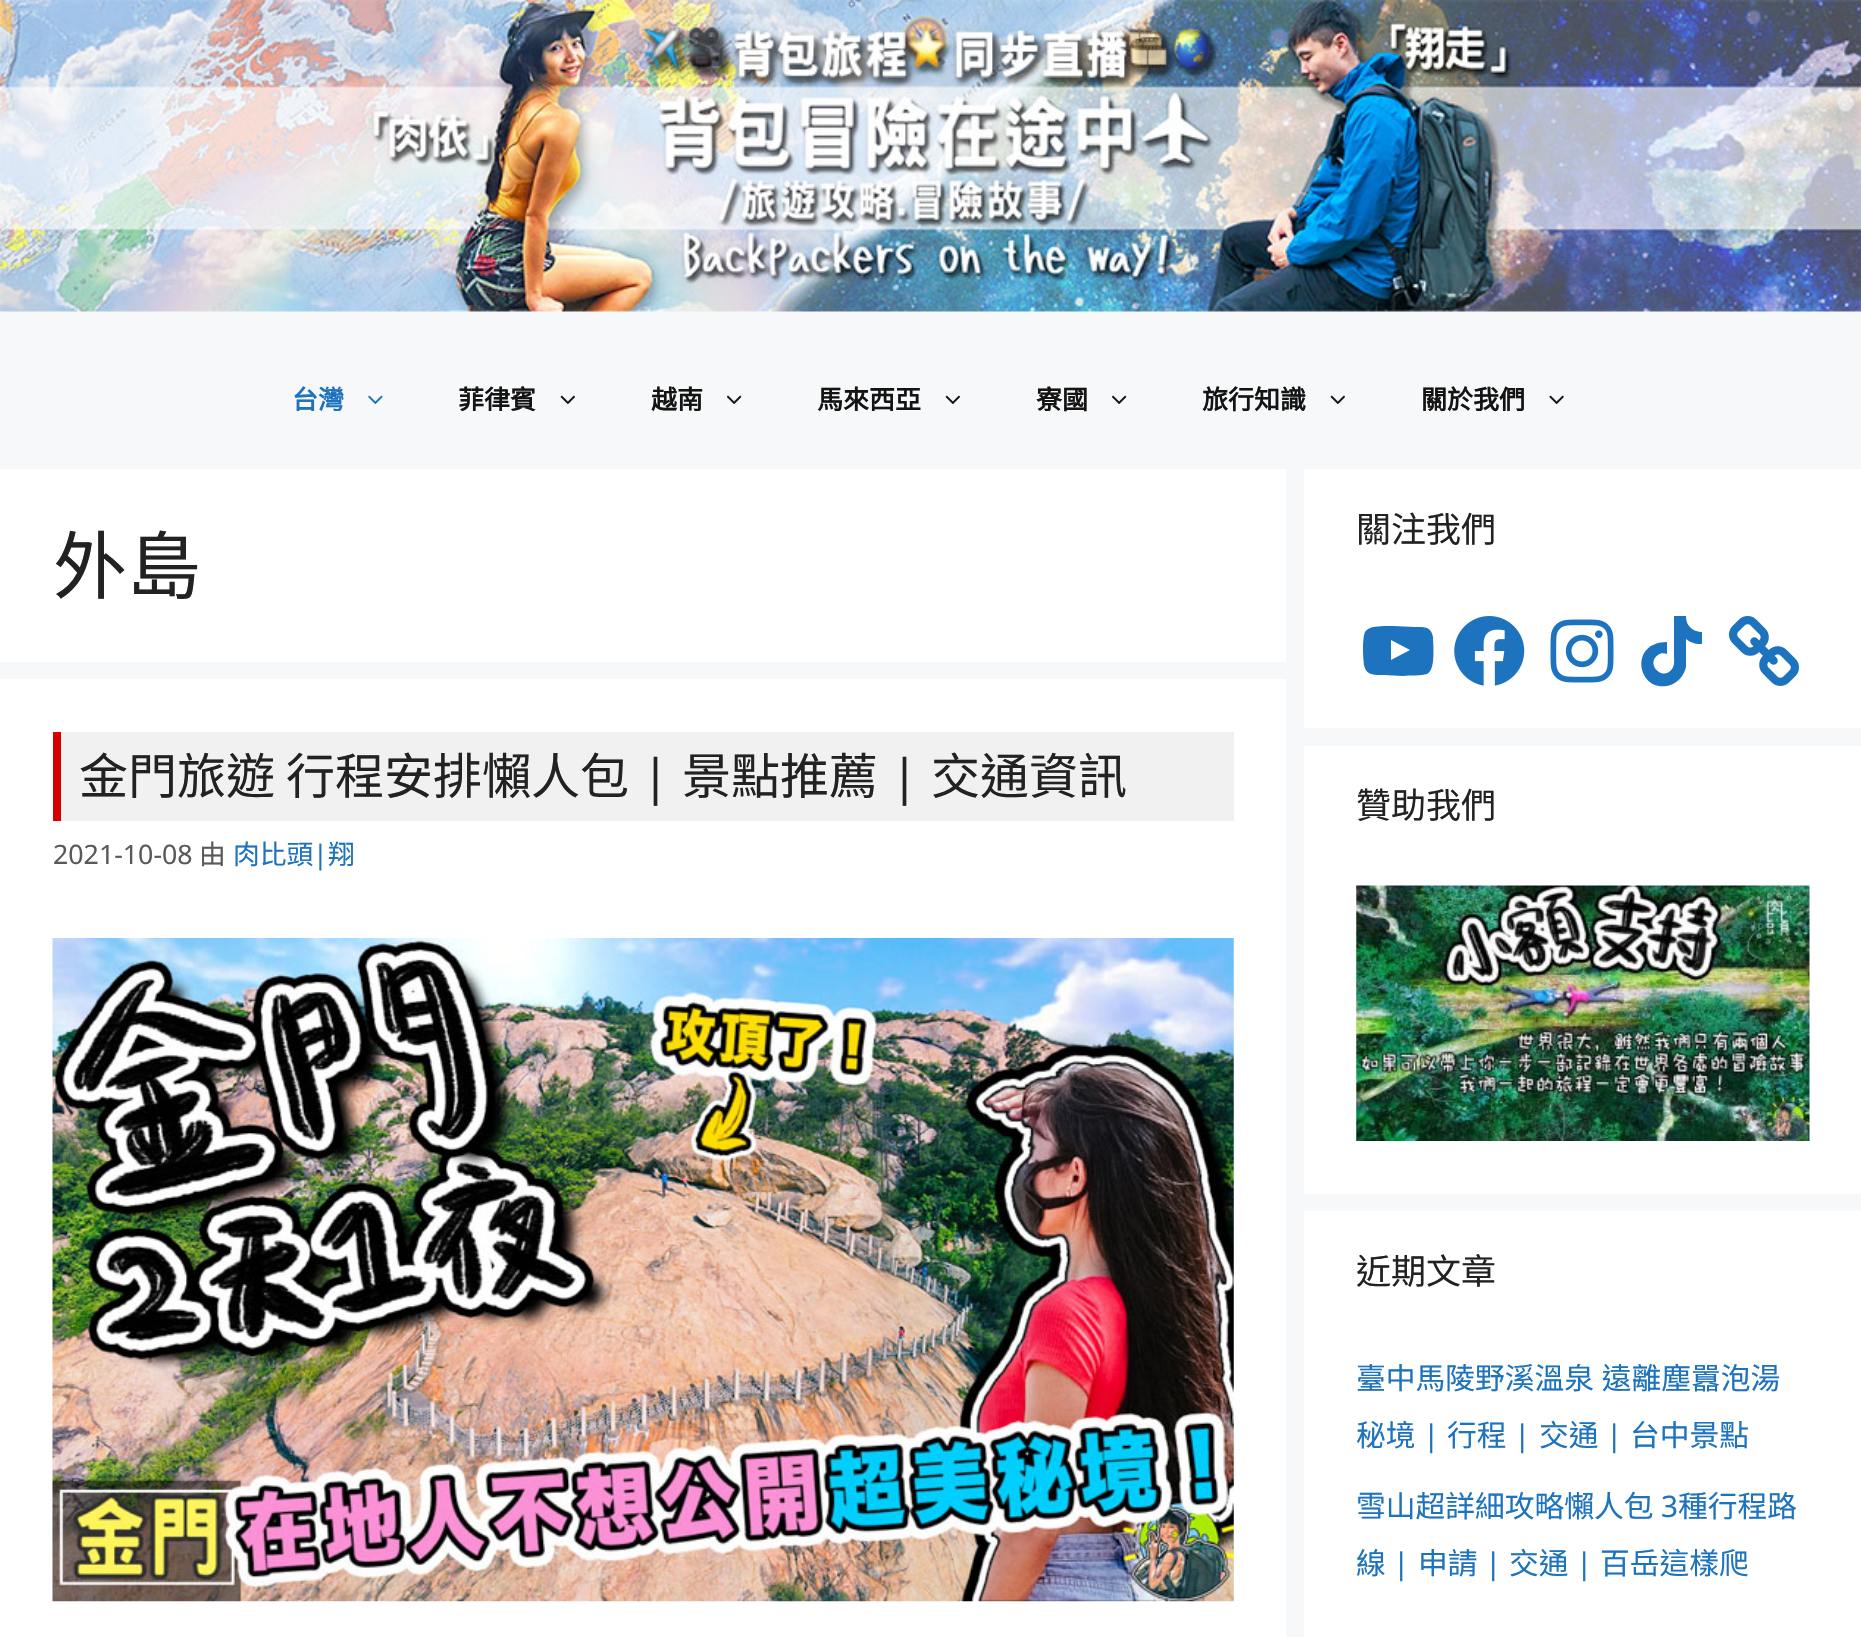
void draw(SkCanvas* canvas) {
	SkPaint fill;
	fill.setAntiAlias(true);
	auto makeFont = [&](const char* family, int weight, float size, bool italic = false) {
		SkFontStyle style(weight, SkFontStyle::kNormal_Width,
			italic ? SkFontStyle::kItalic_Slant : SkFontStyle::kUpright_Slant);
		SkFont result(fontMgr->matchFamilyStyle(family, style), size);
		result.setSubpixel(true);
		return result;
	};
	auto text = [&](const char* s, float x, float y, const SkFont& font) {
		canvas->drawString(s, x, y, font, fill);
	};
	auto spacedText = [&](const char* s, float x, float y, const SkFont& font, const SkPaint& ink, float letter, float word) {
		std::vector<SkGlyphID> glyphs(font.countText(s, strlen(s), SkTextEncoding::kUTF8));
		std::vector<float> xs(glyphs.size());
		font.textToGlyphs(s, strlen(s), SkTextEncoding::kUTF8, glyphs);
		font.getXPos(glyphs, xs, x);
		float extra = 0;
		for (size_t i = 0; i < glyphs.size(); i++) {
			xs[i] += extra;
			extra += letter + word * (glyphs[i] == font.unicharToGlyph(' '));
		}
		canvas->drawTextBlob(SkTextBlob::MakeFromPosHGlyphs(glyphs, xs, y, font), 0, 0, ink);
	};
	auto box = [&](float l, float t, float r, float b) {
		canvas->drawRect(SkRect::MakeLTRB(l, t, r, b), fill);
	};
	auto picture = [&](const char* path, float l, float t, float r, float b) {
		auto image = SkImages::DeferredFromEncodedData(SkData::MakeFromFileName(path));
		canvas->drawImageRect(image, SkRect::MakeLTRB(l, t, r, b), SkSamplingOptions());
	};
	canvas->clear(0xFFF7F8F9);
	picture("image0.png", 0, 0, 1861, 312);
	picture("image1.png", 368, 395, 383, 405);
	picture("image2.png", 560, 395, 575, 404);
	picture("image3.png", 726, 395, 742, 404);
	picture("image2.png", 945, 395, 960, 404);
	picture("image3.png", 1111, 395, 1127, 404);
	picture("image2.png", 1330, 395, 1345, 404);
	picture("image4.png", 1549, 395, 1564, 405);
	fill.setColor(0xFFFFFFFF);
	box(0, 469, 1286, 662);
	box(0, 679, 1286, 1637);
	fill.setColor(0xFFF1F1F1);
	box(61, 732, 1234, 821);
	fill.setColor(0xFFD60000);
	box(53, 732, 61, 821);
	picture("image5.png", 52, 938, 1234, 1602);
	fill.setColor(0xFFFFFFFF);
	box(1304, 469, 1861, 728);
	fill.setColor(0xFF1E73BE);
	canvas->drawPath(SkPathBuilder().moveTo(1433, 637).cubicTo(1431, 626, 1424, 627, 1415, 627).lineTo(1393, 626).cubicTo(1387, 626, 1375, 626, 1370, 628).cubicTo(1368, 629, 1366, 630, 1365, 632).cubicTo(1362, 639, 1363, 657, 1364, 665).cubicTo(1366, 676, 1375, 675, 1384, 675).lineTo(1403, 676).cubicTo(1409, 675, 1422, 676, 1427, 674).cubicTo(1436, 670, 1433, 645, 1433, 637).close().moveTo(1391, 660).lineTo(1391, 640).lineTo(1410, 650).close().detach(), fill);
	picture("image6.png", 1454, 616, 1525, 686);
	picture("image7.png", 1550, 619, 1614, 683);
	canvas->drawPath(SkPathBuilder().moveTo(1674, 616).lineTo(1686, 616).cubicTo(1686, 616, 1685, 631, 1702, 632).lineTo(1702, 644).cubicTo(1702, 644, 1693, 645, 1686, 639).lineTo(1686, 667).cubicTo(1684, 676, 1677, 684, 1667, 686).cubicTo(1637, 691, 1629, 642, 1667, 642).lineTo(1667, 654).cubicTo(1664, 653, 1660, 653, 1658, 655).cubicTo(1645, 664, 1663, 682, 1672, 669).cubicTo(1675, 665, 1674, 660, 1674, 656).close().detach(), fill);
	picture("image8.png", 1729, 616, 1799, 686);
	fill.setColor(0xFFFFFFFF);
	box(1304, 746, 1861, 1194);
	picture("image9.png", 1356, 885, 1810, 1141);
	box(1304, 1211, 1861, 1637);
	auto font1 = makeFont("Noto Sans CJK TC", 700, 26);
	fill.setColor(0xFF1E73BE);
	text("台灣", 292, 409, font1);
	fill.setColor(0xFF141414);
	text("菲律賓", 458, 409, font1);
	text("越南", 651, 409, font1);
	text("馬來西亞", 817, 409, font1);
	text("寮國", 1036, 409, font1);
	text("旅行知識", 1202, 409, font1);
	text("關於我們", 1421, 409, font1);
	auto font2 = makeFont("Noto Sans CJK TC", 400, 74);
	fill.setColor(0xFF222222);
	text("外島", 53, 593, font2);
	auto font3 = makeFont("Noto Sans CJK TC", 400, 49);
	text("金門旅遊 行程安排懶人包", 79, 794, font3);
	auto font4 = makeFont("Noto Sans", 400, 49);
	text("|", 642, 794, font4);
	text("景點推薦", 682, 794, font3);
	text("|", 891, 794, font4);
	text("交通資訊", 931, 794, font3);
	auto font5 = makeFont("Noto Sans", 400, 26.75f);
	fill.setColor(0xFF595959);
	text("2021-10-08", 53, 864, font5);
	auto font6 = makeFont("Noto Sans CJK TC", 400, 26.75f);
	text("由", 199, 864, font6);
	fill.setColor(0xFF1E73BE);
	text("肉比頭", 233, 864, font6);
	text("|", 313, 864, font5);
	text("翔", 328, 864, font6);
	auto font7 = makeFont("Noto Sans CJK TC", 400, 35);
	fill.setColor(0xFF222222);
	text("關注我們", 1356, 542, font7);
	text("贊助我們", 1356, 818, font7);
	text("近期文章", 1356, 1284, font7);
	auto font8 = makeFont("Noto Sans CJK TC", 400, 29.75f);
	fill.setColor(0xFF1E73BE);
	spacedText("臺中馬陵野溪溫泉 遠離塵囂泡湯", 1356, 1389, font8, fill, 0, 1);
	text("秘境", 1356, 1446, font8);
	auto font9 = makeFont("Noto Sans", 400, 29.75f);
	text("|", 1423, 1446, font9);
	text("行程", 1447, 1446, font8);
	text("|", 1514, 1446, font9);
	text("交通", 1539, 1446, font8);
	text("|", 1606, 1446, font9);
	text("台中景點", 1630, 1446, font8);
	text("雪山超詳細攻略懶人包", 1356, 1517, font8);
	text("3", 1661, 1517, font9);
	text("種行程路", 1678, 1517, font8);
	text("線", 1356, 1574, font8);
	text("|", 1393, 1574, font9);
	text("申請", 1418, 1574, font8);
	text("|", 1485, 1574, font9);
	text("交通", 1509, 1574, font8);
	text("|", 1576, 1574, font9);
	text("百岳這樣爬", 1600, 1574, font8);
}
